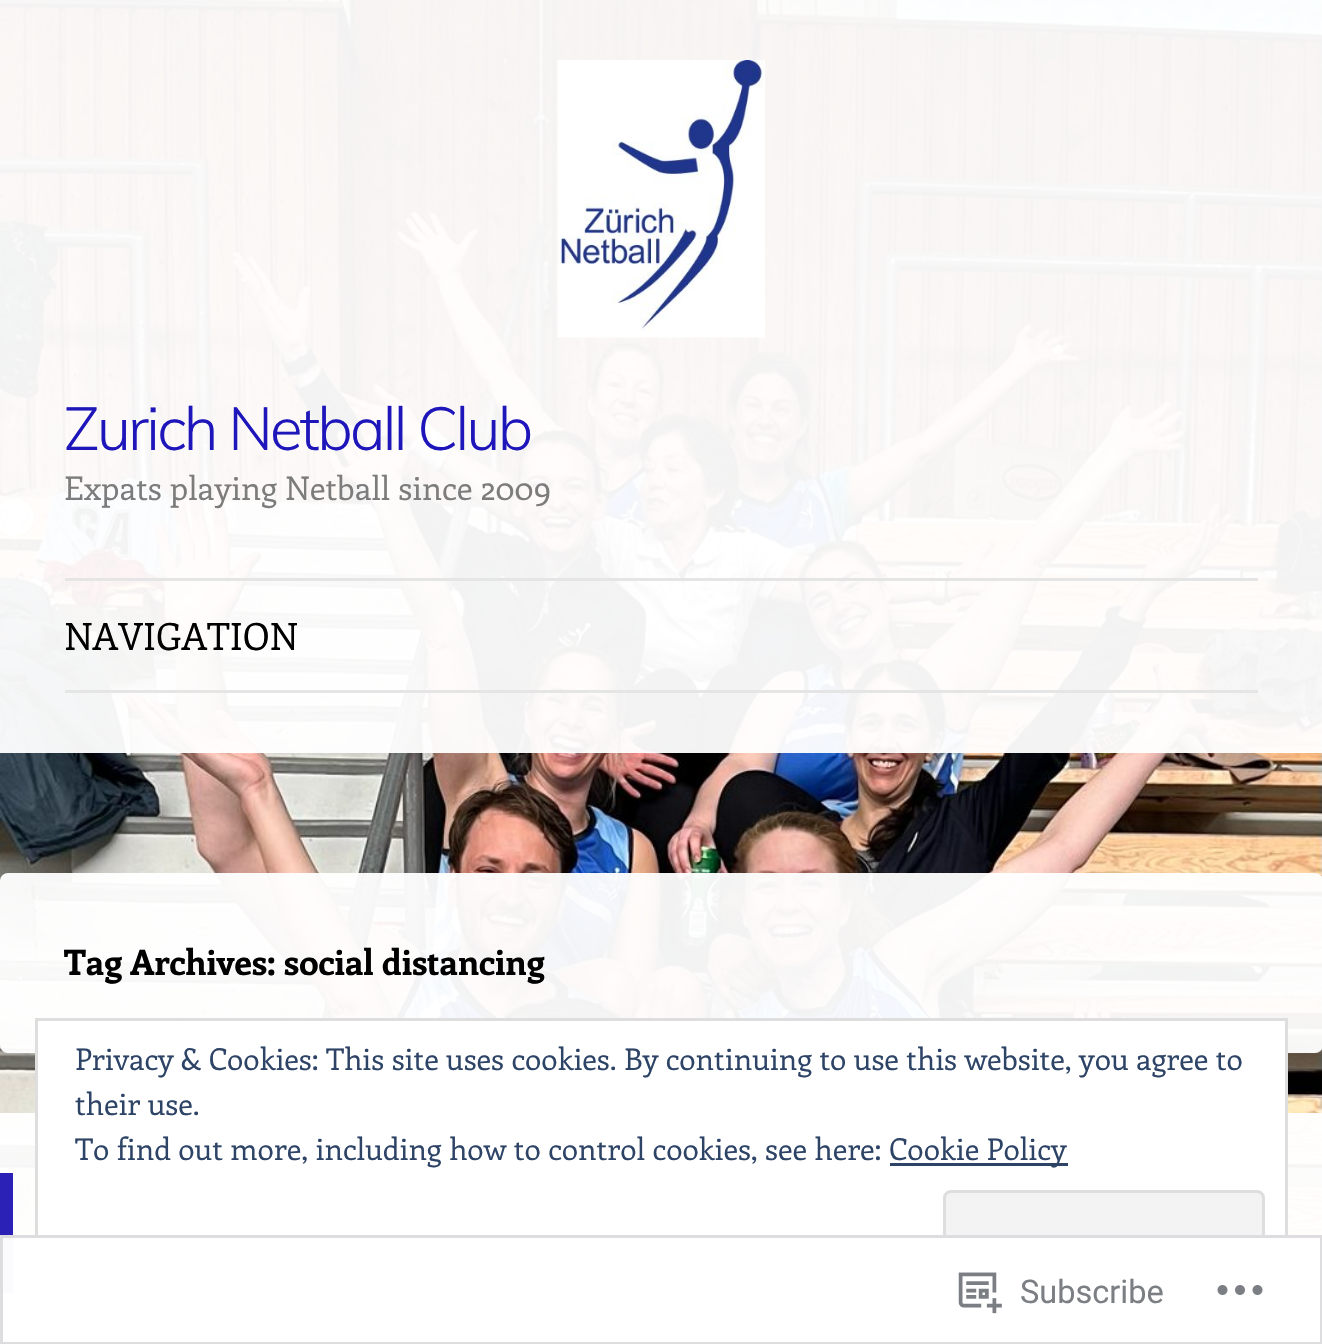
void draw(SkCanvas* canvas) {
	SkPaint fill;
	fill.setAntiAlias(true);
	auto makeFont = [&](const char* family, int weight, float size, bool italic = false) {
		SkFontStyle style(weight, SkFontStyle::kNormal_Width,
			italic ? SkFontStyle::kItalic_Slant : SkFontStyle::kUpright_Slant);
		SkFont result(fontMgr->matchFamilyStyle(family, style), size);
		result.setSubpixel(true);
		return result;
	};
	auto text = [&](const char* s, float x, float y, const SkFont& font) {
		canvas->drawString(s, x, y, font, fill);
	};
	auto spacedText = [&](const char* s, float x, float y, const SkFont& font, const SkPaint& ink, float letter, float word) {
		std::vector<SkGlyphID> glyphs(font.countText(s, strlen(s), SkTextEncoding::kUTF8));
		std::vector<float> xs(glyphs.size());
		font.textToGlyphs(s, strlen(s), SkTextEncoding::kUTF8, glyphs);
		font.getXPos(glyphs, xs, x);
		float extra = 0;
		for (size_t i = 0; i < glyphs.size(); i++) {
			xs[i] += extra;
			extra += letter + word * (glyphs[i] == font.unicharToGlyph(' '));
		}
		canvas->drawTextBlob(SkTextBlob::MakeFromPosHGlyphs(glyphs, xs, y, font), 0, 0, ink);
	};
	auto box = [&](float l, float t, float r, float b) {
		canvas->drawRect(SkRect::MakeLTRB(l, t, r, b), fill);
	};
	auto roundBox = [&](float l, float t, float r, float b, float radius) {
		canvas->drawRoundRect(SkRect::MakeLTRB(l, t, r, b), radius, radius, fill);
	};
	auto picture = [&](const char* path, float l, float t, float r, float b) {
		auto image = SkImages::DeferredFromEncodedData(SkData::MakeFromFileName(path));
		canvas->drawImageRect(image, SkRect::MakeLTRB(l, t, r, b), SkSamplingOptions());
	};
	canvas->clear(0xFFFFFFFF);
	picture("image0.png", 0, 0, 1322, 1344);
	fill.setColor(0xF2FFFFFF);
	box(0, 0, 1322, 753);
	picture("image1.png", 557, 60, 765, 338);
	fill.setColor(0xFFE5E5E5);
	box(65, 578, 1258, 581);
	box(65, 690, 1258, 693);
	fill.setColor(0xF2FFFFFF);
	roundBox(0, 873, 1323, 1053, 8);
	box(0, 1113, 1322, 1344);
	fill.setColor(0xFF2B21B7);
	box(0, 1173, 13, 1293);
	fill.setColor(0xFFFFFFFF);
	canvas->drawRect(SkRect::MakeLTRB(36.5f, 1019.5f, 1286.5f, 1308.5f), fill);
	fill.setStyle(SkPaint::kStroke_Style);
	fill.setStrokeWidth(3);
	fill.setColor(0xFFDEDEDE);
	canvas->drawRect(SkRect::MakeLTRB(36.5f, 1019.5f, 1286.5f, 1308.5f), fill);
	fill.setStyle(SkPaint::kFill_Style);
	fill.setColor(0xFF2E4467);
	box(890, 1163, 1068, 1166);
	fill.setColor(0xFFF3F3F3);
	canvas->drawRoundRect(SkRect::MakeLTRB(944.5f, 1191.5f, 1263.5f, 1286.5f), 6.5f, 6.5f, fill);
	fill.setStyle(SkPaint::kStroke_Style);
	fill.setColor(0xFFDEDEDE);
	canvas->drawRoundRect(SkRect::MakeLTRB(944.5f, 1191.5f, 1263.5f, 1286.5f), 6.5f, 6.5f, fill);
	fill.setStyle(SkPaint::kFill_Style);
	fill.setColor(0xFAFFFFFF);
	box(0, 1235, 1322, 1344);
	fill.setStyle(SkPaint::kStroke_Style);
	fill.setColor(0xFADCDCDE);
	canvas->drawRect(SkRect::MakeLTRB(1.5f, 1236.5f, 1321.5f, 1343.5f), fill);
	picture("image2.png", 958, 1272, 1002, 1314);
	picture("image3.png", 1217, 1285, 1263, 1295);
	auto font1 = makeFont("Muli", 300, 60);
	fill.setStyle(SkPaint::kFill_Style);
	fill.setColor(0xFF1E16BA);
	spacedText("Zurich Netball Club", 64, 450, font1, fill, -2.75f, 0);
	auto font2 = makeFont("Enriqueta", 400, 32.5f);
	fill.setColor(0xFF7D7C7C);
	text("Expats playing Netball since 2009", 64, 500, font2);
	auto font3 = makeFont("Enriqueta", 400, 37.5f);
	fill.setColor(0xFF000000);
	text("NAVIGATION", 64, 650, font3);
	auto font4 = makeFont("Enriqueta", 700, 35);
	text("Tag Archives: social distancing", 64, 975, font4);
	auto font5 = makeFont("Enriqueta", 400, 30);
	fill.setColor(0xFF2E4467);
	text("Privacy & Cookies: This site uses cookies. By continuing to use this website, you agree to", 75, 1070, font5);
	text("their use.", 75, 1115, font5);
	text("To find out more, including how to control cookies, see here:", 75, 1160, font5);
	text("Cookie Policy", 889, 1160, font5);
	auto font6 = makeFont("Roboto", 400, 32.5f);
	fill.setColor(0xFF7B7F84);
	text("Subscribe", 1020, 1303, font6);
}
